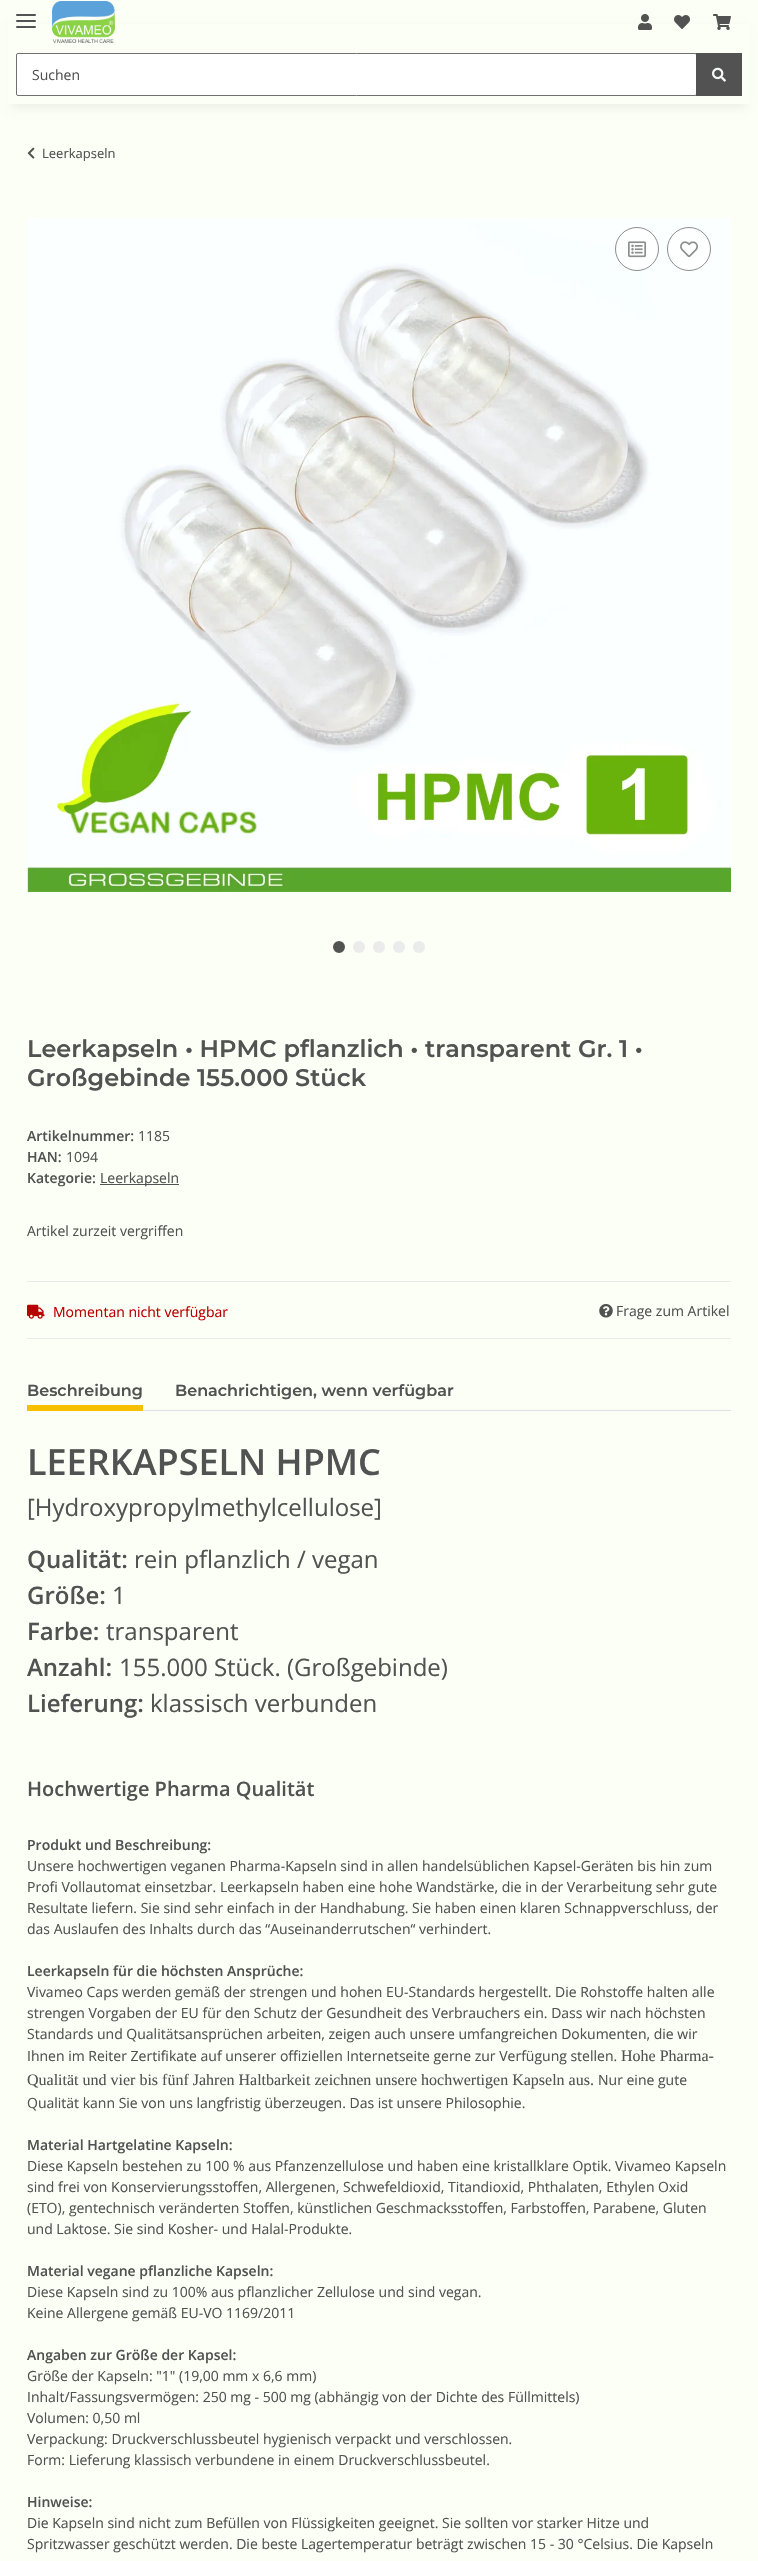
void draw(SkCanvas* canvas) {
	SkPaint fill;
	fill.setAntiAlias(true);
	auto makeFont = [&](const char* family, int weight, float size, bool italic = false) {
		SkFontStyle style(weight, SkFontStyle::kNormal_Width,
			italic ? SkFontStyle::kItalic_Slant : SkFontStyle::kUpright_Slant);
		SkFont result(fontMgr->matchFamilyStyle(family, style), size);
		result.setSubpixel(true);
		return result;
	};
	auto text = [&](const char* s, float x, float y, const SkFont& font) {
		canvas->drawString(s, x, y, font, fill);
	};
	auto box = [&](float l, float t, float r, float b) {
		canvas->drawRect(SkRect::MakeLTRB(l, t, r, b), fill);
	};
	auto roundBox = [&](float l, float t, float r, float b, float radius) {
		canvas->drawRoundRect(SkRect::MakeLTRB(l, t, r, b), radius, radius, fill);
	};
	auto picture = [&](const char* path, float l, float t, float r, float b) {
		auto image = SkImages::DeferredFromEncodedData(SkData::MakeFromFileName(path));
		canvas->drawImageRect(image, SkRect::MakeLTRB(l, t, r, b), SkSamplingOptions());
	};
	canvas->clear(0xFFFBFFF6);
	fill.setColor(0x0F000000);
	fill.setMaskFilter(SkMaskFilter::MakeBlur(kNormal_SkBlurStyle, 4.5f));
	canvas->drawRect(SkRect::MakeLTRB(12, 28, 746, 108), fill);
	fill.setMaskFilter(nullptr);
	fill.setColor(0xFFFBFFF6);
	box(8, 24, 750, 104);
	fill.setColor(0xFF525252);
	roundBox(16, 20, 36, 22, 1);
	roundBox(16, 14, 36, 16, 1);
	roundBox(16, 26, 36, 28, 1);
	picture("image0.png", 52, 1, 115, 43);
	picture("image1.png", 638, 14, 652, 30);
	picture("image2.png", 674, 15, 690, 29);
	picture("image3.png", 713, 14, 731, 30);
	fill.setColor(0xFFFFFFFF);
	canvas->drawRoundRect(SkRect::MakeLTRB(16.5f, 53.5f, 696.5f, 95.5f), 1.5f, 1.5f, fill);
	fill.setStyle(SkPaint::kStroke_Style);
	fill.setStrokeWidth(1);
	fill.setColor(0xFF707070);
	canvas->drawRoundRect(SkRect::MakeLTRB(16.5f, 53.5f, 696.5f, 95.5f), 1.5f, 1.5f, fill);
	fill.setStyle(SkPaint::kFill_Style);
	fill.setColor(0xFF525252);
	box(696, 53, 742, 96);
	picture("image4.png", 712, 67, 726, 82);
	picture("image5.png", 27, 147, 35, 159);
	picture("image6.png", 27, 218, 731, 892);
	canvas->drawCircle(339, 947, 5, fill);
	fill.setStyle(SkPaint::kStroke_Style);
	fill.setStrokeWidth(2);
	canvas->drawCircle(339, 947, 5, fill);
	fill.setStyle(SkPaint::kFill_Style);
	fill.setColor(0xFFEBEBEB);
	canvas->drawCircle(359, 947, 5, fill);
	fill.setStyle(SkPaint::kStroke_Style);
	canvas->drawCircle(359, 947, 5, fill);
	fill.setStyle(SkPaint::kFill_Style);
	canvas->drawCircle(379, 947, 5, fill);
	fill.setStyle(SkPaint::kStroke_Style);
	canvas->drawCircle(379, 947, 5, fill);
	fill.setStyle(SkPaint::kFill_Style);
	canvas->drawCircle(399, 947, 5, fill);
	fill.setStyle(SkPaint::kStroke_Style);
	canvas->drawCircle(399, 947, 5, fill);
	fill.setStyle(SkPaint::kFill_Style);
	canvas->drawCircle(419, 947, 5, fill);
	fill.setStyle(SkPaint::kStroke_Style);
	canvas->drawCircle(419, 947, 5, fill);
	fill.setStyle(SkPaint::kFill_Style);
	fill.setColor(0xFFFEFFFF);
	canvas->drawCircle(637, 249, 21.5f, fill);
	fill.setStyle(SkPaint::kStroke_Style);
	fill.setStrokeWidth(1);
	fill.setColor(0xFF8C8D8D);
	canvas->drawCircle(637, 249, 21.5f, fill);
	picture("image7.png", 628, 241, 646, 258);
	fill.setStyle(SkPaint::kFill_Style);
	fill.setColor(0xFFFEFFFF);
	canvas->drawCircle(689, 249, 21.5f, fill);
	fill.setStyle(SkPaint::kStroke_Style);
	fill.setColor(0xFF8C8D8D);
	canvas->drawCircle(689, 249, 21.5f, fill);
	picture("image8.png", 680, 241, 698, 258);
	fill.setStyle(SkPaint::kFill_Style);
	fill.setColor(0xFF525252);
	box(100, 1184, 179, 1185);
	fill.setColor(0xFFEBEBEB);
	box(27, 1281, 731, 1282);
	box(27, 1338, 731, 1339);
	picture("image9.png", 27, 1304, 45, 1319);
	picture("image10.png", 599, 1304, 613, 1318);
	fill.setColor(0xFFDEE2E6);
	box(143, 1410, 731, 1411);
	fill.setColor(0xFFF8BF00);
	box(27, 1405, 143, 1411);
	auto font1 = makeFont("Open Sans", 400, 14);
	fill.setColor(0xFF525252);
	text("Suchen", 32, 80, font1);
	auto font2 = makeFont("Open Sans", 400, 13);
	text("Leerkapseln", 42, 158, font2);
	auto font3 = makeFont("Montserrat", 600, 24);
	text("Leerkapseln • HPMC pflanzlich • transparent Gr. 1 •", 27, 1057, font3);
	text("Großgebinde 155.000 Stück", 27, 1086, font3);
	auto font4 = makeFont("Open Sans", 600, 14);
	text("Artikelnummer:", 27, 1141, font4);
	text("1185", 138, 1141, font1);
	text("HAN:", 27, 1162, font4);
	text("1094", 66, 1162, font1);
	text("Kategorie:", 27, 1183, font4);
	text("Leerkapseln", 100, 1183, font1);
	text("Artikel zurzeit vergriffen", 27, 1236, font1);
	fill.setColor(0xFFB90000);
	text("Momentan nicht verfügbar", 53, 1317, font1);
	fill.setColor(0xFF525252);
	text("Frage zum Artikel", 616, 1316, font1);
	auto font5 = makeFont("Montserrat", 600, 16);
	text("Beschreibung", 27, 1396, font5);
	text("Benachrichtigen, wenn verfügbar", 175, 1396, font5);
	auto font6 = makeFont("Open Sans", 600, 36);
	text("LEERKAPSELN HPMC", 27, 1475, font6);
	auto font7 = makeFont("Open Sans", 400, 24);
	text("[Hydroxypropylmethylcellulose]", 27, 1516, font7);
	auto font8 = makeFont("Open Sans", 600, 24);
	text("Qualität:", 27, 1568, font8);
	text("rein pflanzlich / vegan", 134, 1568, font7);
	text("Größe:", 27, 1604, font8);
	text("1", 112, 1604, font7);
	text("Farbe:", 27, 1640, font8);
	text("transparent", 106, 1640, font7);
	text("Anzahl:", 27, 1676, font8);
	text("155.000 Stück. (Großgebinde)", 119, 1676, font7);
	text("Lieferung:", 27, 1712, font8);
	text("klassisch verbunden", 150, 1712, font7);
	auto font9 = makeFont("Open Sans", 600, 20);
	text("Hochwertige Pharma Qualität", 27, 1796, font9);
	text("Produkt und Beschreibung:", 27, 1850, font4);
	text("Unsere hochwertigen veganen Pharma-Kapseln sind in allen handelsüblichen Kapsel-Geräten bis hin zum", 27, 1871, font1);
	text("Profi Vollautomat einsetzbar. Leerkapseln haben eine hohe Wandstärke, die in der Verarbeitung sehr gute", 27, 1892, font1);
	text("Resultate liefern. Sie sind sehr einfach in der Handhabung. Sie haben einen klaren Schnappverschluss, der", 27, 1913, font1);
	text("das Auslaufen des Inhalts durch das “Auseinanderrutschen“ verhindert.", 27, 1934, font1);
	text("Leerkapseln für die höchsten Ansprüche:", 27, 1976, font4);
	text("Vivameo Caps werden gemäß der strengen und hohen EU-Standards hergestellt. Die Rohstoffe halten alle", 27, 1997, font1);
	text("strengen Vorgaben der EU für den Schutz der Gesundheit des Verbrauchers ein. Dass wir nach höchsten", 27, 2018, font1);
	text("Standards und Qualitätsansprüchen arbeiten, zeigen auch unsere umfangreichen Dokumenten, die wir", 27, 2039, font1);
	text("Ihnen im Reiter Zertifikate auf unserer offiziellen Internetseite gerne zur Verfügung stellen.", 27, 2061, font1);
	auto font10 = makeFont("Liberation Serif", 400, 16);
	text("Hohe Pharma-", 621, 2061, font10);
	text("Qualität und vier bis fünf Jahren Haltbarkeit zeichnen unsere hochwertigen Kapseln aus.", 27, 2085, font10);
	text("Nur eine gute", 598, 2085, font1);
	text("Qualität kann Sie von uns langfristig überzeugen. Das ist unsere Philosophie.", 27, 2108, font1);
	text("Material Hartgelatine Kapseln:", 27, 2150, font4);
	text("Diese Kapseln bestehen zu 100 % aus Pfanzenzellulose und haben eine kristallklare Optik. Vivameo Kapseln", 27, 2171, font1);
	text("sind frei von Konservierungsstoffen, Allergenen, Schwefeldioxid, Titandioxid, Phthalaten, Ethylen Oxid", 27, 2192, font1);
	text("(ETO), gentechnisch veränderten Stoffen, künstlichen Geschmacksstoffen, Farbstoffen, Parabene, Gluten", 27, 2213, font1);
	text("und Laktose. Sie sind Kosher- und Halal-Produkte.", 27, 2234, font1);
	text("Material vegane pflanzliche Kapseln:", 27, 2276, font4);
	text("Diese Kapseln sind zu 100% aus pflanzlicher Zellulose und sind vegan.", 27, 2297, font1);
	text("Keine Allergene gemäß EU-VO 1169/2011", 27, 2318, font1);
	text("Angaben zur Größe der Kapsel:", 27, 2360, font4);
	text("Größe der Kapseln: \"1\" (19,00 mm x 6,6 mm)", 27, 2381, font1);
	text("Inhalt/Fassungsvermögen: 250 mg - 500 mg (abhängig von der Dichte des Füllmittels)", 27, 2402, font1);
	text("Volumen: 0,50 ml", 27, 2423, font1);
	text("Verpackung: Druckverschlussbeutel hygienisch verpackt und verschlossen.", 27, 2444, font1);
	text("Form: Lieferung klassisch verbundene in einem Druckverschlussbeutel.", 27, 2465, font1);
	text("Hinweise:", 27, 2507, font4);
	text("Die Kapseln sind nicht zum Befüllen von Flüssigkeiten geeignet. Sie sollten vor starker Hitze und", 27, 2528, font1);
	text("Spritzwasser geschützt werden. Die beste Lagertemperatur beträgt zwischen 15 - 30 °Celsius. Die Kapseln", 27, 2549, font1);
}
